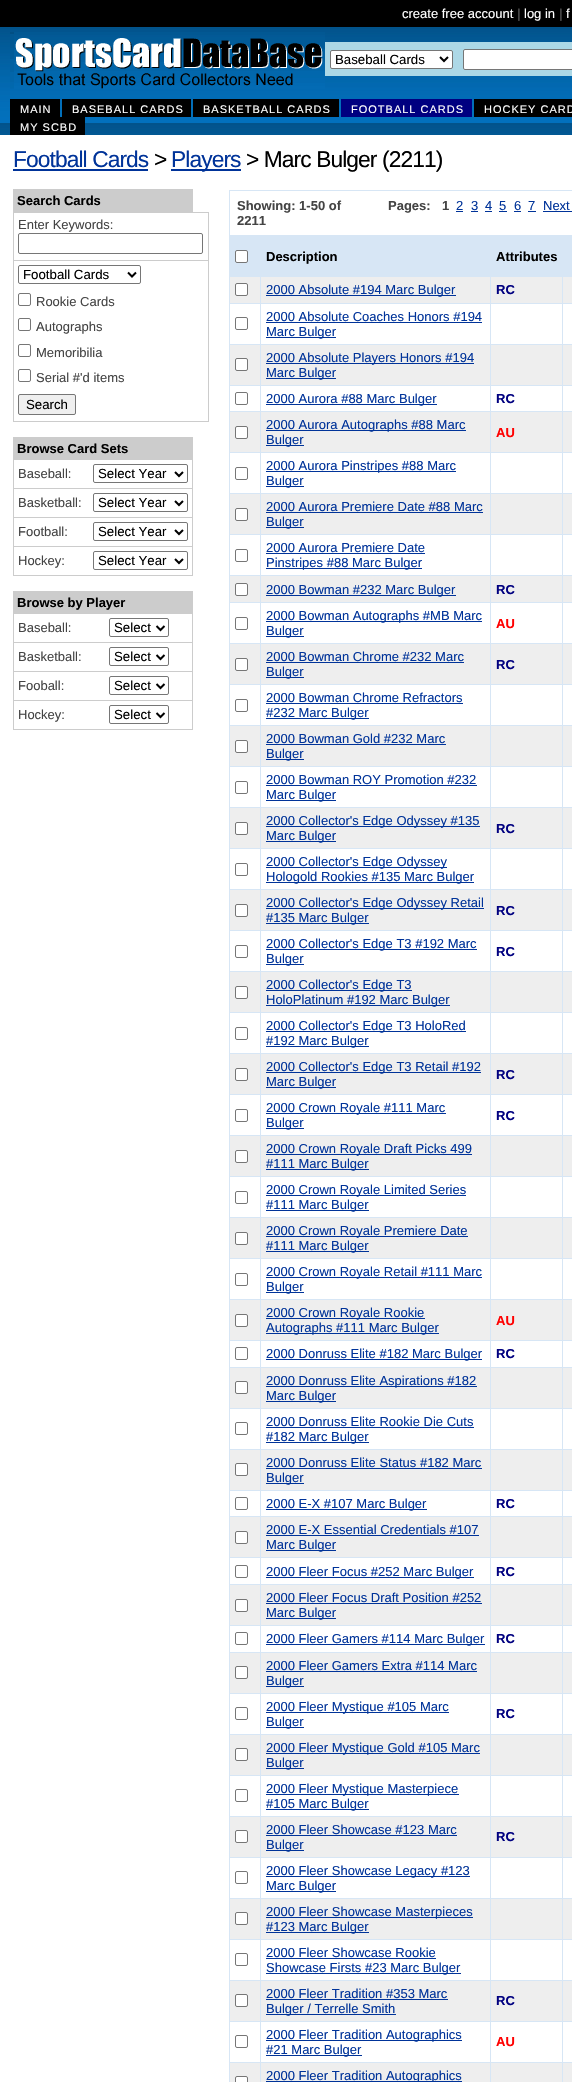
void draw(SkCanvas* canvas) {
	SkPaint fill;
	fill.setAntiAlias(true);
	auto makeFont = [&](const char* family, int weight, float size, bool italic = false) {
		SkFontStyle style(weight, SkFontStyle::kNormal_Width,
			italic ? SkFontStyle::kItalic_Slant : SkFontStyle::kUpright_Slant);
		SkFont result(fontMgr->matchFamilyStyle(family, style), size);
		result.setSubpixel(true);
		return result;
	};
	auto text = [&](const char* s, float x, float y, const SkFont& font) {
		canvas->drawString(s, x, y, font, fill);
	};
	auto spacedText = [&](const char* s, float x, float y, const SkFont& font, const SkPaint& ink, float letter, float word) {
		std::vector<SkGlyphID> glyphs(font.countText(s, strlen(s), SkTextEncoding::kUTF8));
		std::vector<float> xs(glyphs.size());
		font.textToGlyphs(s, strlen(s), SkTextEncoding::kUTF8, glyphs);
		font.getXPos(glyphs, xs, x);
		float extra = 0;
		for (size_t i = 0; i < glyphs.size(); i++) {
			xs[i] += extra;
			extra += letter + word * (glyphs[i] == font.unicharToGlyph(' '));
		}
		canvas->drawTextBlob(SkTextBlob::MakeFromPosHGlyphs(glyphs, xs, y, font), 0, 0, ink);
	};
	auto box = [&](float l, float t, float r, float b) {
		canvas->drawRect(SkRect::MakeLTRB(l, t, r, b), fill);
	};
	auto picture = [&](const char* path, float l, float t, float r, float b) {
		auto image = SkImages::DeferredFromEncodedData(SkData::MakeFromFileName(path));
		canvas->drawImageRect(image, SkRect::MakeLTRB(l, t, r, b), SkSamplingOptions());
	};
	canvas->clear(0xFF000000);
	picture("image0.png", 0, 27, 572, 135);
	picture("image1.png", 10, 32, 325, 89);
	fill.setColor(0xFFADD8E6);
	box(325, 42, 572, 76);
	fill.setColor(0xFFFFFFFF);
	canvas->drawRoundRect(SkRect::MakeLTRB(330.5f, 50.5f, 452.5f, 68.5f), 1.5f, 1.5f, fill);
	fill.setStyle(SkPaint::kStroke_Style);
	fill.setStrokeWidth(1);
	fill.setColor(0xFF767676);
	canvas->drawRoundRect(SkRect::MakeLTRB(330.5f, 50.5f, 452.5f, 68.5f), 1.5f, 1.5f, fill);
	fill.setStrokeWidth(2);
	fill.setColor(0xFF000000);
	canvas->drawPath(SkPathBuilder().moveTo(440, 57).lineTo(444, 61).lineTo(448, 57).detach(), fill);
	fill.setStyle(SkPaint::kFill_Style);
	fill.setColor(0xFFFFFFFF);
	canvas->drawRoundRect(SkRect::MakeLTRB(463.5f, 49.5f, 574.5f, 69.5f), 1.5f, 1.5f, fill);
	fill.setStyle(SkPaint::kStroke_Style);
	fill.setStrokeWidth(1);
	fill.setColor(0xFF767676);
	canvas->drawRoundRect(SkRect::MakeLTRB(463.5f, 49.5f, 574.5f, 69.5f), 1.5f, 1.5f, fill);
	fill.setStyle(SkPaint::kFill_Style);
	fill.setColor(0xFF000000);
	box(10, 99, 60, 117);
	box(62, 99, 191, 117);
	box(193, 99, 339, 117);
	fill.setColor(0xFF000080);
	box(341, 99, 472, 117);
	fill.setColor(0xFF000000);
	box(474, 99, 572, 117);
	box(10, 117, 85, 135);
	fill.setColor(0xFFFFFFFF);
	box(0, 135, 572, 2082);
	fill.setColor(0xFF003399);
	box(13, 169, 148, 171);
	box(171, 169, 241, 171);
	fill.setColor(0xFFCCCCCC);
	box(13, 189, 193, 212);
	fill.setStyle(SkPaint::kStroke_Style);
	canvas->drawRect(SkRect::MakeLTRB(13.5f, 212.5f, 208.5f, 421.5f), fill);
	fill.setStyle(SkPaint::kFill_Style);
	box(14, 260, 208, 261);
	fill.setStyle(SkPaint::kStroke_Style);
	fill.setColor(0xFF767676);
	canvas->drawRoundRect(SkRect::MakeLTRB(18.5f, 233.5f, 202.5f, 253.5f), 1.5f, 1.5f, fill);
	canvas->drawRoundRect(SkRect::MakeLTRB(18.5f, 265.5f, 140.5f, 283.5f), 1.5f, 1.5f, fill);
	fill.setStrokeWidth(2);
	fill.setColor(0xFF000000);
	canvas->drawPath(SkPathBuilder().moveTo(128, 272.5f).lineTo(132, 276.5f).lineTo(136, 272.5f).detach(), fill);
	fill.setStrokeWidth(1);
	fill.setColor(0xFF767676);
	canvas->drawRoundRect(SkRect::MakeLTRB(18.5f, 293.5f, 30.5f, 305.5f), 1.5f, 1.5f, fill);
	canvas->drawRoundRect(SkRect::MakeLTRB(18.5f, 318.5f, 30.5f, 330.5f), 1.5f, 1.5f, fill);
	canvas->drawRoundRect(SkRect::MakeLTRB(18.5f, 344.5f, 30.5f, 356.5f), 1.5f, 1.5f, fill);
	canvas->drawRoundRect(SkRect::MakeLTRB(18.5f, 369.5f, 30.5f, 381.5f), 1.5f, 1.5f, fill);
	fill.setStyle(SkPaint::kFill_Style);
	fill.setColor(0xFFEFEFEF);
	canvas->drawRoundRect(SkRect::MakeLTRB(18.5f, 394.5f, 75.5f, 414.5f), 1.5f, 1.5f, fill);
	fill.setStyle(SkPaint::kStroke_Style);
	fill.setColor(0xFF767676);
	canvas->drawRoundRect(SkRect::MakeLTRB(18.5f, 394.5f, 75.5f, 414.5f), 1.5f, 1.5f, fill);
	fill.setStyle(SkPaint::kFill_Style);
	fill.setColor(0xFFCCCCCC);
	box(13, 437, 193, 460);
	box(13, 488, 87, 489);
	box(13, 460, 14, 489);
	box(192, 460, 193, 576);
	box(87, 488, 193, 489);
	fill.setStyle(SkPaint::kStroke_Style);
	fill.setColor(0xFF767676);
	canvas->drawRoundRect(SkRect::MakeLTRB(93.5f, 464.5f, 187.5f, 482.5f), 1.5f, 1.5f, fill);
	fill.setStrokeWidth(2);
	fill.setColor(0xFF000000);
	canvas->drawPath(SkPathBuilder().moveTo(175, 472).lineTo(179, 476).lineTo(183, 472).detach(), fill);
	fill.setStyle(SkPaint::kFill_Style);
	fill.setColor(0xFFCCCCCC);
	box(13, 517, 193, 518);
	box(13, 489, 14, 518);
	fill.setStyle(SkPaint::kStroke_Style);
	fill.setStrokeWidth(1);
	fill.setColor(0xFF767676);
	canvas->drawRoundRect(SkRect::MakeLTRB(93.5f, 493.5f, 187.5f, 511.5f), 1.5f, 1.5f, fill);
	fill.setStrokeWidth(2);
	fill.setColor(0xFF000000);
	canvas->drawPath(SkPathBuilder().moveTo(175, 501).lineTo(179, 505).lineTo(183, 501).detach(), fill);
	fill.setStyle(SkPaint::kFill_Style);
	fill.setColor(0xFFCCCCCC);
	box(13, 546, 193, 547);
	box(13, 518, 14, 547);
	fill.setStyle(SkPaint::kStroke_Style);
	fill.setStrokeWidth(1);
	fill.setColor(0xFF767676);
	canvas->drawRoundRect(SkRect::MakeLTRB(93.5f, 522.5f, 187.5f, 540.5f), 1.5f, 1.5f, fill);
	fill.setStrokeWidth(2);
	fill.setColor(0xFF000000);
	canvas->drawPath(SkPathBuilder().moveTo(175, 530).lineTo(179, 534).lineTo(183, 530).detach(), fill);
	fill.setStyle(SkPaint::kFill_Style);
	fill.setColor(0xFFCCCCCC);
	box(13, 575, 193, 576);
	box(13, 547, 14, 576);
	fill.setStyle(SkPaint::kStroke_Style);
	fill.setStrokeWidth(1);
	fill.setColor(0xFF767676);
	canvas->drawRoundRect(SkRect::MakeLTRB(93.5f, 551.5f, 187.5f, 569.5f), 1.5f, 1.5f, fill);
	fill.setStrokeWidth(2);
	fill.setColor(0xFF000000);
	canvas->drawPath(SkPathBuilder().moveTo(175, 559).lineTo(179, 563).lineTo(183, 559).detach(), fill);
	fill.setStyle(SkPaint::kFill_Style);
	fill.setColor(0xFFCCCCCC);
	box(13, 591, 193, 614);
	box(13, 642, 105, 643);
	box(13, 614, 14, 643);
	box(192, 614, 193, 730);
	box(105, 642, 193, 643);
	fill.setStyle(SkPaint::kStroke_Style);
	fill.setStrokeWidth(1);
	fill.setColor(0xFF767676);
	canvas->drawRoundRect(SkRect::MakeLTRB(109.5f, 618.5f, 168.5f, 636.5f), 1.5f, 1.5f, fill);
	fill.setStrokeWidth(2);
	fill.setColor(0xFF000000);
	canvas->drawPath(SkPathBuilder().moveTo(156.5f, 626).lineTo(160.5f, 630).lineTo(164.5f, 626).detach(), fill);
	fill.setStyle(SkPaint::kFill_Style);
	fill.setColor(0xFFCCCCCC);
	box(13, 671, 193, 672);
	box(13, 643, 14, 672);
	fill.setStyle(SkPaint::kStroke_Style);
	fill.setStrokeWidth(1);
	fill.setColor(0xFF767676);
	canvas->drawRoundRect(SkRect::MakeLTRB(109.5f, 647.5f, 168.5f, 665.5f), 1.5f, 1.5f, fill);
	fill.setStrokeWidth(2);
	fill.setColor(0xFF000000);
	canvas->drawPath(SkPathBuilder().moveTo(156.5f, 655).lineTo(160.5f, 659).lineTo(164.5f, 655).detach(), fill);
	fill.setStyle(SkPaint::kFill_Style);
	fill.setColor(0xFFCCCCCC);
	box(13, 700, 193, 701);
	box(13, 672, 14, 701);
	fill.setStyle(SkPaint::kStroke_Style);
	fill.setStrokeWidth(1);
	fill.setColor(0xFF767676);
	canvas->drawRoundRect(SkRect::MakeLTRB(109.5f, 676.5f, 168.5f, 694.5f), 1.5f, 1.5f, fill);
	fill.setStrokeWidth(2);
	fill.setColor(0xFF000000);
	canvas->drawPath(SkPathBuilder().moveTo(156.5f, 684).lineTo(160.5f, 688).lineTo(164.5f, 684).detach(), fill);
	fill.setStyle(SkPaint::kFill_Style);
	fill.setColor(0xFFCCCCCC);
	box(13, 729, 193, 730);
	box(13, 701, 14, 730);
	fill.setStyle(SkPaint::kStroke_Style);
	fill.setStrokeWidth(1);
	fill.setColor(0xFF767676);
	canvas->drawRoundRect(SkRect::MakeLTRB(109.5f, 705.5f, 168.5f, 723.5f), 1.5f, 1.5f, fill);
	fill.setStrokeWidth(2);
	fill.setColor(0xFF000000);
	canvas->drawPath(SkPathBuilder().moveTo(156.5f, 713).lineTo(160.5f, 717).lineTo(164.5f, 713).detach(), fill);
	fill.setStyle(SkPaint::kFill_Style);
	fill.setColor(0xFFD7E6F5);
	box(229, 190, 572, 191);
	box(229, 191, 230, 235);
	fill.setColor(0xFF003399);
	box(456, 211, 463, 212);
	box(471, 211, 478, 212);
	box(485, 211, 492, 212);
	box(499, 211, 507, 212);
	box(514, 211, 521, 212);
	box(528, 211, 536, 212);
	box(543, 211, 572, 212);
	fill.setColor(0xFFEEEEEE);
	box(230, 277, 572, 2082);
	fill.setColor(0xFFD7E6F5);
	box(229, 235, 572, 236);
	box(229, 235, 230, 2082);
	box(230, 236, 572, 277);
	fill.setColor(0xFFFFFFFF);
	canvas->drawRoundRect(SkRect::MakeLTRB(235.5f, 250.5f, 247.5f, 262.5f), 1.5f, 1.5f, fill);
	fill.setStyle(SkPaint::kStroke_Style);
	fill.setStrokeWidth(1);
	fill.setColor(0xFF767676);
	canvas->drawRoundRect(SkRect::MakeLTRB(235.5f, 250.5f, 247.5f, 262.5f), 1.5f, 1.5f, fill);
	fill.setStyle(SkPaint::kFill_Style);
	fill.setColor(0xFFFFFFFF);
	canvas->drawRoundRect(SkRect::MakeLTRB(235.5f, 283.5f, 247.5f, 295.5f), 1.5f, 1.5f, fill);
	fill.setStyle(SkPaint::kStroke_Style);
	fill.setColor(0xFF767676);
	canvas->drawRoundRect(SkRect::MakeLTRB(235.5f, 283.5f, 247.5f, 295.5f), 1.5f, 1.5f, fill);
	fill.setStyle(SkPaint::kFill_Style);
	fill.setColor(0xFFD7E6F5);
	box(562, 303, 572, 304);
	fill.setColor(0xFFFFFFFF);
	box(230, 304, 572, 344);
	fill.setColor(0xFFD7E6F5);
	box(562, 344, 572, 345);
	box(562, 385, 572, 386);
	fill.setColor(0xFFFFFFFF);
	box(230, 386, 572, 411);
	fill.setColor(0xFFD7E6F5);
	box(562, 411, 572, 412);
	box(562, 452, 572, 453);
	fill.setColor(0xFFFFFFFF);
	box(230, 453, 572, 493);
	fill.setColor(0xFFD7E6F5);
	box(562, 493, 572, 494);
	box(562, 534, 572, 535);
	fill.setColor(0xFFFFFFFF);
	box(230, 535, 572, 575);
	fill.setColor(0xFFD7E6F5);
	box(562, 575, 572, 576);
	box(562, 602, 572, 603);
	fill.setColor(0xFFFFFFFF);
	box(230, 603, 572, 643);
	fill.setColor(0xFFD7E6F5);
	box(562, 643, 572, 644);
	box(562, 684, 572, 685);
	fill.setColor(0xFFFFFFFF);
	box(230, 685, 572, 725);
	fill.setColor(0xFFD7E6F5);
	box(562, 725, 572, 726);
	box(562, 766, 572, 767);
	fill.setColor(0xFFFFFFFF);
	box(230, 767, 572, 807);
	fill.setColor(0xFFD7E6F5);
	box(562, 807, 572, 808);
	box(562, 848, 572, 849);
	fill.setColor(0xFFFFFFFF);
	box(230, 849, 572, 889);
	fill.setColor(0xFFD7E6F5);
	box(562, 889, 572, 890);
	box(562, 930, 572, 931);
	fill.setColor(0xFFFFFFFF);
	box(230, 931, 572, 971);
	fill.setColor(0xFFD7E6F5);
	box(562, 971, 572, 972);
	box(562, 1012, 572, 1013);
	fill.setColor(0xFFFFFFFF);
	box(230, 1013, 572, 1053);
	fill.setColor(0xFFD7E6F5);
	box(562, 1053, 572, 1054);
	box(562, 1094, 572, 1095);
	fill.setColor(0xFFFFFFFF);
	box(230, 1095, 572, 1135);
	fill.setColor(0xFFD7E6F5);
	box(562, 1135, 572, 1136);
	box(562, 1176, 572, 1177);
	fill.setColor(0xFFFFFFFF);
	box(230, 1177, 572, 1217);
	fill.setColor(0xFFD7E6F5);
	box(562, 1217, 572, 1218);
	box(562, 1258, 572, 1259);
	fill.setColor(0xFFFFFFFF);
	box(230, 1259, 572, 1299);
	fill.setColor(0xFFD7E6F5);
	box(562, 1299, 572, 1300);
	box(562, 1340, 572, 1341);
	fill.setColor(0xFFFFFFFF);
	box(230, 1341, 572, 1367);
	fill.setColor(0xFFD7E6F5);
	box(562, 1367, 572, 1368);
	box(562, 1408, 572, 1409);
	fill.setColor(0xFFFFFFFF);
	box(230, 1409, 572, 1449);
	fill.setColor(0xFFD7E6F5);
	box(562, 1449, 572, 1450);
	box(562, 1490, 572, 1491);
	fill.setColor(0xFFFFFFFF);
	box(230, 1491, 572, 1516);
	fill.setColor(0xFFD7E6F5);
	box(562, 1516, 572, 1517);
	box(562, 1557, 572, 1558);
	fill.setColor(0xFFFFFFFF);
	box(230, 1558, 572, 1584);
	fill.setColor(0xFFD7E6F5);
	box(562, 1584, 572, 1585);
	box(562, 1625, 572, 1626);
	fill.setColor(0xFFFFFFFF);
	box(230, 1626, 572, 1652);
	fill.setColor(0xFFD7E6F5);
	box(562, 1652, 572, 1653);
	box(562, 1693, 572, 1694);
	fill.setColor(0xFFFFFFFF);
	box(230, 1694, 572, 1734);
	fill.setColor(0xFFD7E6F5);
	box(562, 1734, 572, 1735);
	box(562, 1775, 572, 1776);
	fill.setColor(0xFFFFFFFF);
	box(230, 1776, 572, 1816);
	fill.setColor(0xFFD7E6F5);
	box(562, 1816, 572, 1817);
	box(562, 1857, 572, 1858);
	fill.setColor(0xFFFFFFFF);
	box(230, 1858, 572, 1898);
	fill.setColor(0xFFD7E6F5);
	box(562, 1898, 572, 1899);
	box(562, 1939, 572, 1940);
	fill.setColor(0xFFFFFFFF);
	box(230, 1940, 572, 1980);
	fill.setColor(0xFFD7E6F5);
	box(562, 1980, 572, 1981);
	box(562, 2021, 572, 2022);
	fill.setColor(0xFFFFFFFF);
	box(230, 2022, 572, 2062);
	fill.setColor(0xFFD7E6F5);
	box(562, 2062, 572, 2063);
	box(562, 2062, 563, 2082);
	box(490, 2062, 563, 2063);
	box(562, 2021, 563, 2063);
	box(490, 2021, 563, 2022);
	box(562, 1980, 563, 2022);
	box(490, 1980, 563, 1981);
	box(562, 1939, 563, 1981);
	box(490, 1939, 563, 1940);
	box(562, 1898, 563, 1940);
	box(490, 1898, 563, 1899);
	box(562, 1857, 563, 1899);
	box(490, 1857, 563, 1858);
	box(562, 1816, 563, 1858);
	box(490, 1816, 563, 1817);
	box(562, 1775, 563, 1817);
	box(490, 1775, 563, 1776);
	box(562, 1734, 563, 1776);
	box(490, 1734, 563, 1735);
	box(562, 1693, 563, 1735);
	box(490, 1693, 563, 1694);
	box(562, 1652, 563, 1694);
	box(490, 1652, 563, 1653);
	box(562, 1625, 563, 1653);
	box(490, 1625, 563, 1626);
	box(562, 1584, 563, 1626);
	box(490, 1584, 563, 1585);
	box(562, 1557, 563, 1585);
	box(490, 1557, 563, 1558);
	box(562, 1516, 563, 1558);
	box(490, 1516, 563, 1517);
	box(562, 1490, 563, 1517);
	box(490, 1490, 563, 1491);
	box(562, 1449, 563, 1491);
	box(490, 1449, 563, 1450);
	box(562, 1408, 563, 1450);
	box(490, 1408, 563, 1409);
	box(562, 1367, 563, 1409);
	box(490, 1367, 563, 1368);
	box(562, 1340, 563, 1368);
	box(490, 1340, 563, 1341);
	box(562, 1299, 563, 1341);
	box(490, 1299, 563, 1300);
	box(562, 1258, 563, 1300);
	box(490, 1258, 563, 1259);
	box(562, 1217, 563, 1259);
	box(490, 1217, 563, 1218);
	box(562, 1176, 563, 1218);
	box(490, 1176, 563, 1177);
	box(562, 1135, 563, 1177);
	box(490, 1135, 563, 1136);
	box(562, 1094, 563, 1136);
	box(490, 1094, 563, 1095);
	box(562, 1053, 563, 1095);
	box(490, 1053, 563, 1054);
	box(562, 1012, 563, 1054);
	box(490, 1012, 563, 1013);
	box(562, 971, 563, 1013);
	box(490, 971, 563, 972);
	box(562, 930, 563, 972);
	box(490, 930, 563, 931);
	box(562, 889, 563, 931);
	box(490, 889, 563, 890);
	box(562, 848, 563, 890);
	box(490, 848, 563, 849);
	box(562, 807, 563, 849);
	box(490, 807, 563, 808);
	box(562, 766, 563, 808);
	box(490, 766, 563, 767);
	box(562, 725, 563, 767);
	box(490, 725, 563, 726);
	box(562, 684, 563, 726);
	box(490, 684, 563, 685);
	box(562, 643, 563, 685);
	box(490, 643, 563, 644);
	box(562, 602, 563, 644);
	box(490, 602, 563, 603);
	box(562, 575, 563, 603);
	box(490, 575, 563, 576);
	box(562, 534, 563, 576);
	box(490, 534, 563, 535);
	box(562, 493, 563, 535);
	box(490, 493, 563, 494);
	box(562, 452, 563, 494);
	box(490, 452, 563, 453);
	box(562, 411, 563, 453);
	box(490, 411, 563, 412);
	box(562, 385, 563, 412);
	box(490, 385, 563, 386);
	box(562, 344, 563, 386);
	box(490, 344, 563, 345);
	box(562, 303, 563, 345);
	box(490, 303, 563, 304);
	box(490, 2062, 491, 2082);
	box(260, 2062, 491, 2063);
	box(490, 2021, 491, 2063);
	box(260, 2021, 491, 2022);
	box(490, 1980, 491, 2022);
	box(260, 1980, 491, 1981);
	box(490, 1939, 491, 1981);
	box(260, 1939, 491, 1940);
	box(490, 1898, 491, 1940);
	box(260, 1898, 491, 1899);
	box(490, 1857, 491, 1899);
	box(260, 1857, 491, 1858);
	box(490, 1816, 491, 1858);
	box(260, 1816, 491, 1817);
	box(490, 1775, 491, 1817);
	box(260, 1775, 491, 1776);
	box(490, 1734, 491, 1776);
	box(260, 1734, 491, 1735);
	box(490, 1693, 491, 1735);
	box(260, 1693, 491, 1694);
	box(490, 1652, 491, 1694);
	box(260, 1652, 491, 1653);
	box(490, 1625, 491, 1653);
	box(260, 1625, 491, 1626);
	box(490, 1584, 491, 1626);
	box(260, 1584, 491, 1585);
	box(490, 1557, 491, 1585);
	box(260, 1557, 491, 1558);
	box(490, 1516, 491, 1558);
	box(260, 1516, 491, 1517);
	box(490, 1490, 491, 1517);
	box(260, 1490, 491, 1491);
	box(490, 1449, 491, 1491);
	box(260, 1449, 491, 1450);
	box(490, 1408, 491, 1450);
	box(260, 1408, 491, 1409);
	box(490, 1367, 491, 1409);
	box(260, 1367, 491, 1368);
	box(490, 1340, 491, 1368);
	box(260, 1340, 491, 1341);
	box(490, 1299, 491, 1341);
	box(260, 1299, 491, 1300);
	box(490, 1258, 491, 1300);
	box(260, 1258, 491, 1259);
	box(490, 1217, 491, 1259);
	box(260, 1217, 491, 1218);
	box(490, 1176, 491, 1218);
	box(260, 1176, 491, 1177);
	box(490, 1135, 491, 1177);
	box(260, 1135, 491, 1136);
	box(490, 1094, 491, 1136);
	box(260, 1094, 491, 1095);
	box(490, 1053, 491, 1095);
	box(260, 1053, 491, 1054);
	box(490, 1012, 491, 1054);
	box(260, 1012, 491, 1013);
	box(490, 971, 491, 1013);
	box(260, 971, 491, 972);
	box(490, 930, 491, 972);
	box(260, 930, 491, 931);
	box(490, 889, 491, 931);
	box(260, 889, 491, 890);
	box(490, 848, 491, 890);
	box(260, 848, 491, 849);
	box(490, 807, 491, 849);
	box(260, 807, 491, 808);
	box(490, 766, 491, 808);
	box(260, 766, 491, 767);
	box(490, 725, 491, 767);
	box(260, 725, 491, 726);
	box(490, 684, 491, 726);
	box(260, 684, 491, 685);
	box(490, 643, 491, 685);
	box(260, 643, 491, 644);
	box(490, 602, 491, 644);
	box(260, 602, 491, 603);
	box(490, 575, 491, 603);
	box(260, 575, 491, 576);
	box(490, 534, 491, 576);
	box(260, 534, 491, 535);
	box(490, 493, 491, 535);
	box(260, 493, 491, 494);
	box(490, 452, 491, 494);
	box(260, 452, 491, 453);
	box(490, 411, 491, 453);
	box(260, 411, 491, 412);
	box(490, 385, 491, 412);
	box(260, 385, 491, 386);
	box(490, 344, 491, 386);
	box(260, 344, 491, 345);
	box(490, 303, 491, 345);
	box(260, 303, 491, 304);
	box(260, 2062, 261, 2082);
	box(229, 2062, 261, 2063);
	box(260, 2021, 261, 2063);
	box(229, 2021, 261, 2022);
	box(260, 1980, 261, 2022);
	box(229, 1980, 261, 1981);
	box(260, 1939, 261, 1981);
	box(229, 1939, 261, 1940);
	box(260, 1898, 261, 1940);
	box(229, 1898, 261, 1899);
	box(260, 1857, 261, 1899);
	box(229, 1857, 261, 1858);
	box(260, 1816, 261, 1858);
	box(229, 1816, 261, 1817);
	box(260, 1775, 261, 1817);
	box(229, 1775, 261, 1776);
	box(260, 1734, 261, 1776);
	box(229, 1734, 261, 1735);
	box(260, 1693, 261, 1735);
	box(229, 1693, 261, 1694);
	box(260, 1652, 261, 1694);
	box(229, 1652, 261, 1653);
	box(260, 1625, 261, 1653);
	box(229, 1625, 261, 1626);
	box(260, 1584, 261, 1626);
	box(229, 1584, 261, 1585);
	box(260, 1557, 261, 1585);
	box(229, 1557, 261, 1558);
	box(260, 1516, 261, 1558);
	box(229, 1516, 261, 1517);
	box(260, 1490, 261, 1517);
	box(229, 1490, 261, 1491);
	box(260, 1449, 261, 1491);
	box(229, 1449, 261, 1450);
	box(260, 1408, 261, 1450);
	box(229, 1408, 261, 1409);
	box(260, 1367, 261, 1409);
	box(229, 1367, 261, 1368);
	box(260, 1340, 261, 1368);
	box(229, 1340, 261, 1341);
	box(260, 1299, 261, 1341);
	box(229, 1299, 261, 1300);
	box(260, 1258, 261, 1300);
	box(229, 1258, 261, 1259);
	box(260, 1217, 261, 1259);
	box(229, 1217, 261, 1218);
	box(260, 1176, 261, 1218);
	box(229, 1176, 261, 1177);
	box(260, 1135, 261, 1177);
	box(229, 1135, 261, 1136);
	box(260, 1094, 261, 1136);
	box(229, 1094, 261, 1095);
	box(260, 1053, 261, 1095);
	box(229, 1053, 261, 1054);
	box(260, 1012, 261, 1054);
	box(229, 1012, 261, 1013);
	box(260, 971, 261, 1013);
	box(229, 971, 261, 972);
	box(260, 930, 261, 972);
	box(229, 930, 261, 931);
	box(260, 889, 261, 931);
	box(229, 889, 261, 890);
	box(260, 848, 261, 890);
	box(229, 848, 261, 849);
	box(260, 807, 261, 849);
	box(229, 807, 261, 808);
	box(260, 766, 261, 808);
	box(229, 766, 261, 767);
	box(260, 725, 261, 767);
	box(229, 725, 261, 726);
	box(260, 684, 261, 726);
	box(229, 684, 261, 685);
	box(260, 643, 261, 685);
	box(229, 643, 261, 644);
	box(260, 602, 261, 644);
	box(229, 602, 261, 603);
	box(260, 575, 261, 603);
	box(229, 575, 261, 576);
	box(260, 534, 261, 576);
	box(229, 534, 261, 535);
	box(260, 493, 261, 535);
	box(229, 493, 261, 494);
	box(260, 452, 261, 494);
	box(229, 452, 261, 453);
	box(260, 411, 261, 453);
	box(229, 411, 261, 412);
	box(260, 385, 261, 412);
	box(229, 385, 261, 386);
	box(260, 344, 261, 386);
	box(229, 344, 261, 345);
	box(260, 303, 261, 345);
	box(229, 303, 261, 304);
	box(260, 276, 261, 304);
	fill.setColor(0xFF003399);
	box(266, 295, 456, 296);
	fill.setColor(0xFFD7E6F5);
	box(490, 276, 491, 304);
	box(562, 276, 563, 304);
	fill.setStyle(SkPaint::kStroke_Style);
	fill.setColor(0xFF767676);
	canvas->drawRoundRect(SkRect::MakeLTRB(235.5f, 317.5f, 247.5f, 329.5f), 1.5f, 1.5f, fill);
	fill.setStyle(SkPaint::kFill_Style);
	fill.setColor(0xFF003399);
	box(266, 322, 482, 323);
	box(266, 337, 336, 338);
	fill.setColor(0xFFFFFFFF);
	canvas->drawRoundRect(SkRect::MakeLTRB(235.5f, 358.5f, 247.5f, 370.5f), 1.5f, 1.5f, fill);
	fill.setStyle(SkPaint::kStroke_Style);
	fill.setColor(0xFF767676);
	canvas->drawRoundRect(SkRect::MakeLTRB(235.5f, 358.5f, 247.5f, 370.5f), 1.5f, 1.5f, fill);
	fill.setStyle(SkPaint::kFill_Style);
	fill.setColor(0xFF003399);
	box(266, 363, 474, 364);
	box(266, 378, 336, 379);
	fill.setStyle(SkPaint::kStroke_Style);
	fill.setColor(0xFF767676);
	canvas->drawRoundRect(SkRect::MakeLTRB(235.5f, 392.5f, 247.5f, 404.5f), 1.5f, 1.5f, fill);
	fill.setStyle(SkPaint::kFill_Style);
	fill.setColor(0xFF003399);
	box(266, 404, 437, 405);
	fill.setColor(0xFFFFFFFF);
	canvas->drawRoundRect(SkRect::MakeLTRB(235.5f, 426.5f, 247.5f, 438.5f), 1.5f, 1.5f, fill);
	fill.setStyle(SkPaint::kStroke_Style);
	fill.setColor(0xFF767676);
	canvas->drawRoundRect(SkRect::MakeLTRB(235.5f, 426.5f, 247.5f, 438.5f), 1.5f, 1.5f, fill);
	fill.setStyle(SkPaint::kFill_Style);
	fill.setColor(0xFF003399);
	box(266, 430, 466, 431);
	box(266, 445, 304, 446);
	fill.setStyle(SkPaint::kStroke_Style);
	fill.setColor(0xFF767676);
	canvas->drawRoundRect(SkRect::MakeLTRB(235.5f, 467.5f, 247.5f, 479.5f), 1.5f, 1.5f, fill);
	fill.setStyle(SkPaint::kFill_Style);
	fill.setColor(0xFF003399);
	box(266, 471, 456, 472);
	box(266, 486, 304, 487);
	fill.setColor(0xFFFFFFFF);
	canvas->drawRoundRect(SkRect::MakeLTRB(235.5f, 508.5f, 247.5f, 520.5f), 1.5f, 1.5f, fill);
	fill.setStyle(SkPaint::kStroke_Style);
	fill.setColor(0xFF767676);
	canvas->drawRoundRect(SkRect::MakeLTRB(235.5f, 508.5f, 247.5f, 520.5f), 1.5f, 1.5f, fill);
	fill.setStyle(SkPaint::kFill_Style);
	fill.setColor(0xFF003399);
	box(266, 512, 483, 513);
	box(266, 527, 304, 528);
	fill.setStyle(SkPaint::kStroke_Style);
	fill.setColor(0xFF767676);
	canvas->drawRoundRect(SkRect::MakeLTRB(235.5f, 549.5f, 247.5f, 561.5f), 1.5f, 1.5f, fill);
	fill.setStyle(SkPaint::kFill_Style);
	fill.setColor(0xFF003399);
	box(266, 553, 425, 554);
	box(266, 568, 422, 569);
	fill.setColor(0xFFFFFFFF);
	canvas->drawRoundRect(SkRect::MakeLTRB(235.5f, 583.5f, 247.5f, 595.5f), 1.5f, 1.5f, fill);
	fill.setStyle(SkPaint::kStroke_Style);
	fill.setColor(0xFF767676);
	canvas->drawRoundRect(SkRect::MakeLTRB(235.5f, 583.5f, 247.5f, 595.5f), 1.5f, 1.5f, fill);
	fill.setStyle(SkPaint::kFill_Style);
	fill.setColor(0xFF003399);
	box(266, 595, 456, 596);
	fill.setStyle(SkPaint::kStroke_Style);
	fill.setColor(0xFF767676);
	canvas->drawRoundRect(SkRect::MakeLTRB(235.5f, 617.5f, 247.5f, 629.5f), 1.5f, 1.5f, fill);
	fill.setStyle(SkPaint::kFill_Style);
	fill.setColor(0xFF003399);
	box(266, 621, 482, 622);
	box(266, 636, 304, 637);
	fill.setColor(0xFFFFFFFF);
	canvas->drawRoundRect(SkRect::MakeLTRB(235.5f, 658.5f, 247.5f, 670.5f), 1.5f, 1.5f, fill);
	fill.setStyle(SkPaint::kStroke_Style);
	fill.setColor(0xFF767676);
	canvas->drawRoundRect(SkRect::MakeLTRB(235.5f, 658.5f, 247.5f, 670.5f), 1.5f, 1.5f, fill);
	fill.setStyle(SkPaint::kFill_Style);
	fill.setColor(0xFF003399);
	box(266, 662, 464, 663);
	box(266, 677, 304, 678);
	fill.setStyle(SkPaint::kStroke_Style);
	fill.setColor(0xFF767676);
	canvas->drawRoundRect(SkRect::MakeLTRB(235.5f, 699.5f, 247.5f, 711.5f), 1.5f, 1.5f, fill);
	fill.setStyle(SkPaint::kFill_Style);
	fill.setColor(0xFF003399);
	box(266, 703, 463, 704);
	box(266, 718, 369, 719);
	fill.setColor(0xFFFFFFFF);
	canvas->drawRoundRect(SkRect::MakeLTRB(235.5f, 740.5f, 247.5f, 752.5f), 1.5f, 1.5f, fill);
	fill.setStyle(SkPaint::kStroke_Style);
	fill.setColor(0xFF767676);
	canvas->drawRoundRect(SkRect::MakeLTRB(235.5f, 740.5f, 247.5f, 752.5f), 1.5f, 1.5f, fill);
	fill.setStyle(SkPaint::kFill_Style);
	fill.setColor(0xFF003399);
	box(266, 744, 446, 745);
	box(266, 759, 304, 760);
	fill.setStyle(SkPaint::kStroke_Style);
	fill.setColor(0xFF767676);
	canvas->drawRoundRect(SkRect::MakeLTRB(235.5f, 781.5f, 247.5f, 793.5f), 1.5f, 1.5f, fill);
	fill.setStyle(SkPaint::kFill_Style);
	fill.setColor(0xFF003399);
	box(266, 785, 477, 786);
	box(266, 800, 336, 801);
	fill.setColor(0xFFFFFFFF);
	canvas->drawRoundRect(SkRect::MakeLTRB(235.5f, 822.5f, 247.5f, 834.5f), 1.5f, 1.5f, fill);
	fill.setStyle(SkPaint::kStroke_Style);
	fill.setColor(0xFF767676);
	canvas->drawRoundRect(SkRect::MakeLTRB(235.5f, 822.5f, 247.5f, 834.5f), 1.5f, 1.5f, fill);
	fill.setStyle(SkPaint::kFill_Style);
	fill.setColor(0xFF003399);
	box(266, 826, 480, 827);
	box(266, 841, 336, 842);
	fill.setStyle(SkPaint::kStroke_Style);
	fill.setColor(0xFF767676);
	canvas->drawRoundRect(SkRect::MakeLTRB(235.5f, 863.5f, 247.5f, 875.5f), 1.5f, 1.5f, fill);
	fill.setStyle(SkPaint::kFill_Style);
	fill.setColor(0xFF003399);
	box(266, 867, 447, 868);
	box(266, 882, 474, 883);
	fill.setColor(0xFFFFFFFF);
	canvas->drawRoundRect(SkRect::MakeLTRB(235.5f, 904.5f, 247.5f, 916.5f), 1.5f, 1.5f, fill);
	fill.setStyle(SkPaint::kStroke_Style);
	fill.setColor(0xFF767676);
	canvas->drawRoundRect(SkRect::MakeLTRB(235.5f, 904.5f, 247.5f, 916.5f), 1.5f, 1.5f, fill);
	fill.setStyle(SkPaint::kFill_Style);
	fill.setColor(0xFF003399);
	box(266, 908, 484, 909);
	box(266, 923, 369, 924);
	fill.setStyle(SkPaint::kStroke_Style);
	fill.setColor(0xFF767676);
	canvas->drawRoundRect(SkRect::MakeLTRB(235.5f, 945.5f, 247.5f, 957.5f), 1.5f, 1.5f, fill);
	fill.setStyle(SkPaint::kFill_Style);
	fill.setColor(0xFF003399);
	box(266, 949, 477, 950);
	box(266, 964, 304, 965);
	fill.setColor(0xFFFFFFFF);
	canvas->drawRoundRect(SkRect::MakeLTRB(235.5f, 986.5f, 247.5f, 998.5f), 1.5f, 1.5f, fill);
	fill.setStyle(SkPaint::kStroke_Style);
	fill.setColor(0xFF767676);
	canvas->drawRoundRect(SkRect::MakeLTRB(235.5f, 986.5f, 247.5f, 998.5f), 1.5f, 1.5f, fill);
	fill.setStyle(SkPaint::kFill_Style);
	fill.setColor(0xFF003399);
	box(266, 990, 412, 991);
	box(266, 1005, 450, 1006);
	fill.setStyle(SkPaint::kStroke_Style);
	fill.setColor(0xFF767676);
	canvas->drawRoundRect(SkRect::MakeLTRB(235.5f, 1027.5f, 247.5f, 1039.5f), 1.5f, 1.5f, fill);
	fill.setStyle(SkPaint::kFill_Style);
	fill.setColor(0xFF003399);
	box(266, 1031, 466, 1032);
	box(266, 1046, 369, 1047);
	fill.setColor(0xFFFFFFFF);
	canvas->drawRoundRect(SkRect::MakeLTRB(235.5f, 1068.5f, 247.5f, 1080.5f), 1.5f, 1.5f, fill);
	fill.setStyle(SkPaint::kStroke_Style);
	fill.setColor(0xFF767676);
	canvas->drawRoundRect(SkRect::MakeLTRB(235.5f, 1068.5f, 247.5f, 1080.5f), 1.5f, 1.5f, fill);
	fill.setStyle(SkPaint::kFill_Style);
	fill.setColor(0xFF003399);
	box(266, 1072, 481, 1073);
	box(266, 1087, 336, 1088);
	fill.setStyle(SkPaint::kStroke_Style);
	fill.setColor(0xFF767676);
	canvas->drawRoundRect(SkRect::MakeLTRB(235.5f, 1109.5f, 247.5f, 1121.5f), 1.5f, 1.5f, fill);
	fill.setStyle(SkPaint::kFill_Style);
	fill.setColor(0xFF003399);
	box(266, 1113, 446, 1114);
	box(266, 1128, 304, 1129);
	fill.setColor(0xFFFFFFFF);
	canvas->drawRoundRect(SkRect::MakeLTRB(235.5f, 1150.5f, 247.5f, 1162.5f), 1.5f, 1.5f, fill);
	fill.setStyle(SkPaint::kStroke_Style);
	fill.setColor(0xFF767676);
	canvas->drawRoundRect(SkRect::MakeLTRB(235.5f, 1150.5f, 247.5f, 1162.5f), 1.5f, 1.5f, fill);
	fill.setStyle(SkPaint::kFill_Style);
	fill.setColor(0xFF003399);
	box(266, 1154, 472, 1155);
	box(266, 1169, 369, 1170);
	fill.setStyle(SkPaint::kStroke_Style);
	fill.setColor(0xFF767676);
	canvas->drawRoundRect(SkRect::MakeLTRB(235.5f, 1191.5f, 247.5f, 1203.5f), 1.5f, 1.5f, fill);
	fill.setStyle(SkPaint::kFill_Style);
	fill.setColor(0xFF003399);
	box(266, 1195, 466, 1196);
	box(266, 1210, 369, 1211);
	fill.setColor(0xFFFFFFFF);
	canvas->drawRoundRect(SkRect::MakeLTRB(235.5f, 1232.5f, 247.5f, 1244.5f), 1.5f, 1.5f, fill);
	fill.setStyle(SkPaint::kStroke_Style);
	fill.setColor(0xFF767676);
	canvas->drawRoundRect(SkRect::MakeLTRB(235.5f, 1232.5f, 247.5f, 1244.5f), 1.5f, 1.5f, fill);
	fill.setStyle(SkPaint::kFill_Style);
	fill.setColor(0xFF003399);
	box(266, 1236, 468, 1237);
	box(266, 1251, 369, 1252);
	fill.setStyle(SkPaint::kStroke_Style);
	fill.setColor(0xFF767676);
	canvas->drawRoundRect(SkRect::MakeLTRB(235.5f, 1273.5f, 247.5f, 1285.5f), 1.5f, 1.5f, fill);
	fill.setStyle(SkPaint::kFill_Style);
	fill.setColor(0xFF003399);
	box(266, 1277, 482, 1278);
	box(266, 1292, 304, 1293);
	fill.setColor(0xFFFFFFFF);
	canvas->drawRoundRect(SkRect::MakeLTRB(235.5f, 1314.5f, 247.5f, 1326.5f), 1.5f, 1.5f, fill);
	fill.setStyle(SkPaint::kStroke_Style);
	fill.setColor(0xFF767676);
	canvas->drawRoundRect(SkRect::MakeLTRB(235.5f, 1314.5f, 247.5f, 1326.5f), 1.5f, 1.5f, fill);
	fill.setStyle(SkPaint::kFill_Style);
	fill.setColor(0xFF003399);
	box(266, 1318, 425, 1319);
	box(266, 1333, 439, 1334);
	fill.setStyle(SkPaint::kStroke_Style);
	fill.setColor(0xFF767676);
	canvas->drawRoundRect(SkRect::MakeLTRB(235.5f, 1347.5f, 247.5f, 1359.5f), 1.5f, 1.5f, fill);
	fill.setStyle(SkPaint::kFill_Style);
	fill.setColor(0xFF003399);
	box(266, 1359, 482, 1360);
	fill.setColor(0xFFFFFFFF);
	canvas->drawRoundRect(SkRect::MakeLTRB(235.5f, 1381.5f, 247.5f, 1393.5f), 1.5f, 1.5f, fill);
	fill.setStyle(SkPaint::kStroke_Style);
	fill.setColor(0xFF767676);
	canvas->drawRoundRect(SkRect::MakeLTRB(235.5f, 1381.5f, 247.5f, 1393.5f), 1.5f, 1.5f, fill);
	fill.setStyle(SkPaint::kFill_Style);
	fill.setColor(0xFF003399);
	box(266, 1386, 477, 1387);
	box(266, 1401, 336, 1402);
	fill.setStyle(SkPaint::kStroke_Style);
	fill.setColor(0xFF767676);
	canvas->drawRoundRect(SkRect::MakeLTRB(235.5f, 1422.5f, 247.5f, 1434.5f), 1.5f, 1.5f, fill);
	fill.setStyle(SkPaint::kFill_Style);
	fill.setColor(0xFF003399);
	box(266, 1427, 474, 1428);
	box(266, 1442, 369, 1443);
	fill.setColor(0xFFFFFFFF);
	canvas->drawRoundRect(SkRect::MakeLTRB(235.5f, 1463.5f, 247.5f, 1475.5f), 1.5f, 1.5f, fill);
	fill.setStyle(SkPaint::kStroke_Style);
	fill.setColor(0xFF767676);
	canvas->drawRoundRect(SkRect::MakeLTRB(235.5f, 1463.5f, 247.5f, 1475.5f), 1.5f, 1.5f, fill);
	fill.setStyle(SkPaint::kFill_Style);
	fill.setColor(0xFF003399);
	box(266, 1468, 482, 1469);
	box(266, 1483, 304, 1484);
	fill.setStyle(SkPaint::kStroke_Style);
	fill.setColor(0xFF767676);
	canvas->drawRoundRect(SkRect::MakeLTRB(235.5f, 1497.5f, 247.5f, 1509.5f), 1.5f, 1.5f, fill);
	fill.setStyle(SkPaint::kFill_Style);
	fill.setColor(0xFF003399);
	box(266, 1509, 427, 1510);
	fill.setColor(0xFFFFFFFF);
	canvas->drawRoundRect(SkRect::MakeLTRB(235.5f, 1531.5f, 247.5f, 1543.5f), 1.5f, 1.5f, fill);
	fill.setStyle(SkPaint::kStroke_Style);
	fill.setColor(0xFF767676);
	canvas->drawRoundRect(SkRect::MakeLTRB(235.5f, 1531.5f, 247.5f, 1543.5f), 1.5f, 1.5f, fill);
	fill.setStyle(SkPaint::kFill_Style);
	fill.setColor(0xFF003399);
	box(266, 1535, 479, 1536);
	box(266, 1550, 336, 1551);
	fill.setStyle(SkPaint::kStroke_Style);
	fill.setColor(0xFF767676);
	canvas->drawRoundRect(SkRect::MakeLTRB(235.5f, 1565.5f, 247.5f, 1577.5f), 1.5f, 1.5f, fill);
	fill.setStyle(SkPaint::kFill_Style);
	fill.setColor(0xFF003399);
	box(266, 1577, 474, 1578);
	fill.setColor(0xFFFFFFFF);
	canvas->drawRoundRect(SkRect::MakeLTRB(235.5f, 1599.5f, 247.5f, 1611.5f), 1.5f, 1.5f, fill);
	fill.setStyle(SkPaint::kStroke_Style);
	fill.setColor(0xFF767676);
	canvas->drawRoundRect(SkRect::MakeLTRB(235.5f, 1599.5f, 247.5f, 1611.5f), 1.5f, 1.5f, fill);
	fill.setStyle(SkPaint::kFill_Style);
	fill.setColor(0xFF003399);
	box(266, 1603, 482, 1604);
	box(266, 1618, 336, 1619);
	fill.setStyle(SkPaint::kStroke_Style);
	fill.setColor(0xFF767676);
	canvas->drawRoundRect(SkRect::MakeLTRB(235.5f, 1632.5f, 247.5f, 1644.5f), 1.5f, 1.5f, fill);
	fill.setStyle(SkPaint::kFill_Style);
	fill.setColor(0xFF003399);
	box(266, 1644, 485, 1645);
	fill.setColor(0xFFFFFFFF);
	canvas->drawRoundRect(SkRect::MakeLTRB(235.5f, 1666.5f, 247.5f, 1678.5f), 1.5f, 1.5f, fill);
	fill.setStyle(SkPaint::kStroke_Style);
	fill.setColor(0xFF767676);
	canvas->drawRoundRect(SkRect::MakeLTRB(235.5f, 1666.5f, 247.5f, 1678.5f), 1.5f, 1.5f, fill);
	fill.setStyle(SkPaint::kFill_Style);
	fill.setColor(0xFF003399);
	box(266, 1671, 477, 1672);
	box(266, 1686, 304, 1687);
	fill.setStyle(SkPaint::kStroke_Style);
	fill.setColor(0xFF767676);
	canvas->drawRoundRect(SkRect::MakeLTRB(235.5f, 1707.5f, 247.5f, 1719.5f), 1.5f, 1.5f, fill);
	fill.setStyle(SkPaint::kFill_Style);
	fill.setColor(0xFF003399);
	box(266, 1712, 449, 1713);
	box(266, 1727, 304, 1728);
	fill.setColor(0xFFFFFFFF);
	canvas->drawRoundRect(SkRect::MakeLTRB(235.5f, 1748.5f, 247.5f, 1760.5f), 1.5f, 1.5f, fill);
	fill.setStyle(SkPaint::kStroke_Style);
	fill.setColor(0xFF767676);
	canvas->drawRoundRect(SkRect::MakeLTRB(235.5f, 1748.5f, 247.5f, 1760.5f), 1.5f, 1.5f, fill);
	fill.setStyle(SkPaint::kFill_Style);
	fill.setColor(0xFF003399);
	box(266, 1753, 480, 1754);
	box(266, 1768, 304, 1769);
	fill.setStyle(SkPaint::kStroke_Style);
	fill.setColor(0xFF767676);
	canvas->drawRoundRect(SkRect::MakeLTRB(235.5f, 1789.5f, 247.5f, 1801.5f), 1.5f, 1.5f, fill);
	fill.setStyle(SkPaint::kFill_Style);
	fill.setColor(0xFF003399);
	box(266, 1794, 459, 1795);
	box(266, 1809, 369, 1810);
	fill.setColor(0xFFFFFFFF);
	canvas->drawRoundRect(SkRect::MakeLTRB(235.5f, 1830.5f, 247.5f, 1842.5f), 1.5f, 1.5f, fill);
	fill.setStyle(SkPaint::kStroke_Style);
	fill.setColor(0xFF767676);
	canvas->drawRoundRect(SkRect::MakeLTRB(235.5f, 1830.5f, 247.5f, 1842.5f), 1.5f, 1.5f, fill);
	fill.setStyle(SkPaint::kFill_Style);
	fill.setColor(0xFF003399);
	box(266, 1835, 457, 1836);
	box(266, 1850, 304, 1851);
	fill.setStyle(SkPaint::kStroke_Style);
	fill.setColor(0xFF767676);
	canvas->drawRoundRect(SkRect::MakeLTRB(235.5f, 1871.5f, 247.5f, 1883.5f), 1.5f, 1.5f, fill);
	fill.setStyle(SkPaint::kFill_Style);
	fill.setColor(0xFF003399);
	box(266, 1876, 470, 1877);
	box(266, 1891, 336, 1892);
	fill.setColor(0xFFFFFFFF);
	canvas->drawRoundRect(SkRect::MakeLTRB(235.5f, 1912.5f, 247.5f, 1924.5f), 1.5f, 1.5f, fill);
	fill.setStyle(SkPaint::kStroke_Style);
	fill.setColor(0xFF767676);
	canvas->drawRoundRect(SkRect::MakeLTRB(235.5f, 1912.5f, 247.5f, 1924.5f), 1.5f, 1.5f, fill);
	fill.setStyle(SkPaint::kFill_Style);
	fill.setColor(0xFF003399);
	box(266, 1917, 473, 1918);
	box(266, 1932, 369, 1933);
	fill.setStyle(SkPaint::kStroke_Style);
	fill.setColor(0xFF767676);
	canvas->drawRoundRect(SkRect::MakeLTRB(235.5f, 1953.5f, 247.5f, 1965.5f), 1.5f, 1.5f, fill);
	fill.setStyle(SkPaint::kFill_Style);
	fill.setColor(0xFF003399);
	box(266, 1958, 436, 1959);
	box(266, 1973, 461, 1974);
	fill.setColor(0xFFFFFFFF);
	canvas->drawRoundRect(SkRect::MakeLTRB(235.5f, 1994.5f, 247.5f, 2006.5f), 1.5f, 1.5f, fill);
	fill.setStyle(SkPaint::kStroke_Style);
	fill.setColor(0xFF767676);
	canvas->drawRoundRect(SkRect::MakeLTRB(235.5f, 1994.5f, 247.5f, 2006.5f), 1.5f, 1.5f, fill);
	fill.setStyle(SkPaint::kFill_Style);
	fill.setColor(0xFF003399);
	box(266, 1999, 448, 2000);
	box(266, 2014, 396, 2015);
	fill.setStyle(SkPaint::kStroke_Style);
	fill.setColor(0xFF767676);
	canvas->drawRoundRect(SkRect::MakeLTRB(235.5f, 2035.5f, 247.5f, 2047.5f), 1.5f, 1.5f, fill);
	fill.setStyle(SkPaint::kFill_Style);
	fill.setColor(0xFF003399);
	box(266, 2040, 462, 2041);
	box(266, 2055, 362, 2056);
	fill.setColor(0xFFFFFFFF);
	canvas->drawRoundRect(SkRect::MakeLTRB(235.5f, 2076.5f, 247.5f, 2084.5f), 1.5f, 1.5f, fill);
	fill.setStyle(SkPaint::kStroke_Style);
	fill.setColor(0xFF767676);
	canvas->drawRoundRect(SkRect::MakeLTRB(235.5f, 2076.5f, 247.5f, 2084.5f), 1.5f, 1.5f, fill);
	fill.setStyle(SkPaint::kFill_Style);
	fill.setColor(0xFF003399);
	box(266, 2081, 462, 2082);
	auto font1 = makeFont("Liberation Sans", 400, 13);
	fill.setColor(0xFFFFFFFF);
	text("create free account", 402, 18, font1);
	auto font2 = makeFont("Liberation Sans", 700, 13);
	fill.setColor(0xFF444444);
	text("|", 517, 18, font2);
	fill.setColor(0xFFFFFFFF);
	text("log in", 524, 18, font1);
	fill.setColor(0xFF444444);
	text("|", 559, 18, font2);
	fill.setColor(0xFFFFFFFF);
	text("f", 566, 18, font1);
	auto font3 = makeFont("Liberation Sans", 400, 13.25f);
	fill.setColor(0xFF000000);
	text("Baseball Cards", 335, 64, font3);
	auto font4 = makeFont("Liberation Sans", 400, 11);
	fill.setColor(0xFFFFFFFF);
	spacedText("MAIN", 20, 113, font4, fill, 1, 0);
	spacedText("BASEBALL CARDS", 72, 113, font4, fill, 1, 0);
	spacedText("BASKETBALL CARDS", 203, 113, font4, fill, 1, 0);
	spacedText("FOOTBALL CARDS", 351, 113, font4, fill, 1, 0);
	spacedText("HOCKEY CARD", 484, 113, font4, fill, 1, 0);
	spacedText("MY SCBD", 20, 131, font4, fill, 1, 0);
	auto font5 = makeFont("Liberation Sans", 400, 22.75f);
	fill.setColor(0xFF003399);
	spacedText("Football Cards", 13, 167, font5, fill, -0.9f, 0);
	fill.setColor(0xFF000000);
	spacedText(">", 154, 167, font5, fill, -0.9f, 0);
	fill.setColor(0xFF003399);
	spacedText("Players", 171, 167, font5, fill, -0.9f, 0);
	fill.setColor(0xFF000000);
	spacedText("> Marc Bulger (2211)", 246, 167, font5, fill, -0.9f, 0);
	text("Search Cards", 17, 205, font2);
	fill.setColor(0xFF444444);
	text("Enter Keywords:", 18, 229, font1);
	fill.setColor(0xFF000000);
	text("Football Cards", 23, 279, font3);
	fill.setColor(0xFF444444);
	text("Rookie Cards", 36, 306, font1);
	text("Autographs", 36, 331, font1);
	text("Memoribilia", 36, 357, font1);
	text("Serial #'d items", 36, 382, font1);
	fill.setColor(0xFF000000);
	text("Search", 26, 409, font3);
	text("Browse Card Sets", 17, 453, font2);
	fill.setColor(0xFF444444);
	text("Baseball:", 18, 478, font1);
	fill.setColor(0xFF000000);
	text("Select Year", 98, 478, font3);
	fill.setColor(0xFF444444);
	text("Basketball:", 18, 507, font1);
	fill.setColor(0xFF000000);
	text("Select Year", 98, 507, font3);
	fill.setColor(0xFF444444);
	text("Football:", 18, 536, font1);
	fill.setColor(0xFF000000);
	text("Select Year", 98, 536, font3);
	fill.setColor(0xFF444444);
	text("Hockey:", 18, 565, font1);
	fill.setColor(0xFF000000);
	text("Select Year", 98, 565, font3);
	text("Browse by Player", 17, 607, font2);
	fill.setColor(0xFF444444);
	text("Baseball:", 18, 632, font1);
	fill.setColor(0xFF000000);
	text("Select", 114, 632, font3);
	fill.setColor(0xFF444444);
	text("Basketball:", 18, 661, font1);
	fill.setColor(0xFF000000);
	text("Select", 114, 661, font3);
	fill.setColor(0xFF444444);
	text("Fooball:", 18, 690, font1);
	fill.setColor(0xFF000000);
	text("Select", 114, 690, font3);
	fill.setColor(0xFF444444);
	text("Hockey:", 18, 719, font1);
	fill.setColor(0xFF000000);
	text("Select", 114, 719, font3);
	fill.setColor(0xFF444444);
	text("Showing: 1-50 of", 237, 210, font2);
	text("2211", 237, 225, font2);
	text("Pages:", 388, 210, font2);
	text("1", 442, 210, font2);
	fill.setColor(0xFF003399);
	text("2", 456, 210, font1);
	text("3", 471, 210, font1);
	text("4", 485, 210, font1);
	text("5", 499, 210, font1);
	text("6", 514, 210, font1);
	text("7", 528, 210, font1);
	text("Next", 543, 210, font1);
	fill.setColor(0xFF000000);
	text("Description", 266, 261, font2);
	text("Attributes", 496, 261, font2);
	fill.setColor(0xFF003399);
	text("2000 Absolute #194 Marc Bulger", 266, 294, font1);
	fill.setColor(0xFF000080);
	text("RC", 496, 294, font2);
	fill.setColor(0xFF003399);
	text("2000 Absolute Coaches Honors #194", 266, 321, font1);
	text("Marc Bulger", 266, 336, font1);
	text("2000 Absolute Players Honors #194", 266, 362, font1);
	text("Marc Bulger", 266, 377, font1);
	text("2000 Aurora #88 Marc Bulger", 266, 403, font1);
	fill.setColor(0xFF000080);
	text("RC", 496, 403, font2);
	fill.setColor(0xFF003399);
	text("2000 Aurora Autographs #88 Marc", 266, 429, font1);
	text("Bulger", 266, 444, font1);
	fill.setColor(0xFFFF0000);
	text("AU", 496, 437, font2);
	fill.setColor(0xFF003399);
	text("2000 Aurora Pinstripes #88 Marc", 266, 470, font1);
	text("Bulger", 266, 485, font1);
	text("2000 Aurora Premiere Date #88 Marc", 266, 511, font1);
	text("Bulger", 266, 526, font1);
	text("2000 Aurora Premiere Date", 266, 552, font1);
	text("Pinstripes #88 Marc Bulger", 266, 567, font1);
	text("2000 Bowman #232 Marc Bulger", 266, 594, font1);
	fill.setColor(0xFF000080);
	text("RC", 496, 594, font2);
	fill.setColor(0xFF003399);
	text("2000 Bowman Autographs #MB Marc", 266, 620, font1);
	text("Bulger", 266, 635, font1);
	fill.setColor(0xFFFF0000);
	text("AU", 496, 628, font2);
	fill.setColor(0xFF003399);
	text("2000 Bowman Chrome #232 Marc", 266, 661, font1);
	text("Bulger", 266, 676, font1);
	fill.setColor(0xFF000080);
	text("RC", 496, 669, font2);
	fill.setColor(0xFF003399);
	text("2000 Bowman Chrome Refractors", 266, 702, font1);
	text("#232 Marc Bulger", 266, 717, font1);
	text("2000 Bowman Gold #232 Marc", 266, 743, font1);
	text("Bulger", 266, 758, font1);
	text("2000 Bowman ROY Promotion #232", 266, 784, font1);
	text("Marc Bulger", 266, 799, font1);
	text("2000 Collector's Edge Odyssey #135", 266, 825, font1);
	text("Marc Bulger", 266, 840, font1);
	fill.setColor(0xFF000080);
	text("RC", 496, 833, font2);
	fill.setColor(0xFF003399);
	text("2000 Collector's Edge Odyssey", 266, 866, font1);
	text("Hologold Rookies #135 Marc Bulger", 266, 881, font1);
	text("2000 Collector's Edge Odyssey Retail", 266, 907, font1);
	text("#135 Marc Bulger", 266, 922, font1);
	fill.setColor(0xFF000080);
	text("RC", 496, 915, font2);
	fill.setColor(0xFF003399);
	text("2000 Collector's Edge T3 #192 Marc", 266, 948, font1);
	text("Bulger", 266, 963, font1);
	fill.setColor(0xFF000080);
	text("RC", 496, 956, font2);
	fill.setColor(0xFF003399);
	text("2000 Collector's Edge T3", 266, 989, font1);
	text("HoloPlatinum #192 Marc Bulger", 266, 1004, font1);
	text("2000 Collector's Edge T3 HoloRed", 266, 1030, font1);
	text("#192 Marc Bulger", 266, 1045, font1);
	text("2000 Collector's Edge T3 Retail #192", 266, 1071, font1);
	text("Marc Bulger", 266, 1086, font1);
	fill.setColor(0xFF000080);
	text("RC", 496, 1079, font2);
	fill.setColor(0xFF003399);
	text("2000 Crown Royale #111 Marc", 266, 1112, font1);
	text("Bulger", 266, 1127, font1);
	fill.setColor(0xFF000080);
	text("RC", 496, 1120, font2);
	fill.setColor(0xFF003399);
	text("2000 Crown Royale Draft Picks 499", 266, 1153, font1);
	text("#111 Marc Bulger", 266, 1168, font1);
	text("2000 Crown Royale Limited Series", 266, 1194, font1);
	text("#111 Marc Bulger", 266, 1209, font1);
	text("2000 Crown Royale Premiere Date", 266, 1235, font1);
	text("#111 Marc Bulger", 266, 1250, font1);
	text("2000 Crown Royale Retail #111 Marc", 266, 1276, font1);
	text("Bulger", 266, 1291, font1);
	text("2000 Crown Royale Rookie", 266, 1317, font1);
	text("Autographs #111 Marc Bulger", 266, 1332, font1);
	fill.setColor(0xFFFF0000);
	text("AU", 496, 1325, font2);
	fill.setColor(0xFF003399);
	text("2000 Donruss Elite #182 Marc Bulger", 266, 1358, font1);
	fill.setColor(0xFF000080);
	text("RC", 496, 1358, font2);
	fill.setColor(0xFF003399);
	text("2000 Donruss Elite Aspirations #182", 266, 1385, font1);
	text("Marc Bulger", 266, 1400, font1);
	text("2000 Donruss Elite Rookie Die Cuts", 266, 1426, font1);
	text("#182 Marc Bulger", 266, 1441, font1);
	text("2000 Donruss Elite Status #182 Marc", 266, 1467, font1);
	text("Bulger", 266, 1482, font1);
	text("2000 E-X #107 Marc Bulger", 266, 1508, font1);
	fill.setColor(0xFF000080);
	text("RC", 496, 1508, font2);
	fill.setColor(0xFF003399);
	text("2000 E-X Essential Credentials #107", 266, 1534, font1);
	text("Marc Bulger", 266, 1549, font1);
	text("2000 Fleer Focus #252 Marc Bulger", 266, 1576, font1);
	fill.setColor(0xFF000080);
	text("RC", 496, 1576, font2);
	fill.setColor(0xFF003399);
	text("2000 Fleer Focus Draft Position #252", 266, 1602, font1);
	text("Marc Bulger", 266, 1617, font1);
	text("2000 Fleer Gamers #114 Marc Bulger", 266, 1643, font1);
	fill.setColor(0xFF000080);
	text("RC", 496, 1643, font2);
	fill.setColor(0xFF003399);
	text("2000 Fleer Gamers Extra #114 Marc", 266, 1670, font1);
	text("Bulger", 266, 1685, font1);
	text("2000 Fleer Mystique #105 Marc", 266, 1711, font1);
	text("Bulger", 266, 1726, font1);
	fill.setColor(0xFF000080);
	text("RC", 496, 1718, font2);
	fill.setColor(0xFF003399);
	text("2000 Fleer Mystique Gold #105 Marc", 266, 1752, font1);
	text("Bulger", 266, 1767, font1);
	text("2000 Fleer Mystique Masterpiece", 266, 1793, font1);
	text("#105 Marc Bulger", 266, 1808, font1);
	text("2000 Fleer Showcase #123 Marc", 266, 1834, font1);
	text("Bulger", 266, 1849, font1);
	fill.setColor(0xFF000080);
	text("RC", 496, 1841, font2);
	fill.setColor(0xFF003399);
	text("2000 Fleer Showcase Legacy #123", 266, 1875, font1);
	text("Marc Bulger", 266, 1890, font1);
	text("2000 Fleer Showcase Masterpieces", 266, 1916, font1);
	text("#123 Marc Bulger", 266, 1931, font1);
	text("2000 Fleer Showcase Rookie", 266, 1957, font1);
	text("Showcase Firsts #23 Marc Bulger", 266, 1972, font1);
	text("2000 Fleer Tradition #353 Marc", 266, 1998, font1);
	text("Bulger / Terrelle Smith", 266, 2013, font1);
	fill.setColor(0xFF000080);
	text("RC", 496, 2005, font2);
	fill.setColor(0xFF003399);
	text("2000 Fleer Tradition Autographics", 266, 2039, font1);
	text("#21 Marc Bulger", 266, 2054, font1);
	fill.setColor(0xFFFF0000);
	text("AU", 496, 2046, font2);
	fill.setColor(0xFF003399);
	text("2000 Fleer Tradition Autographics", 266, 2080, font1);
}
